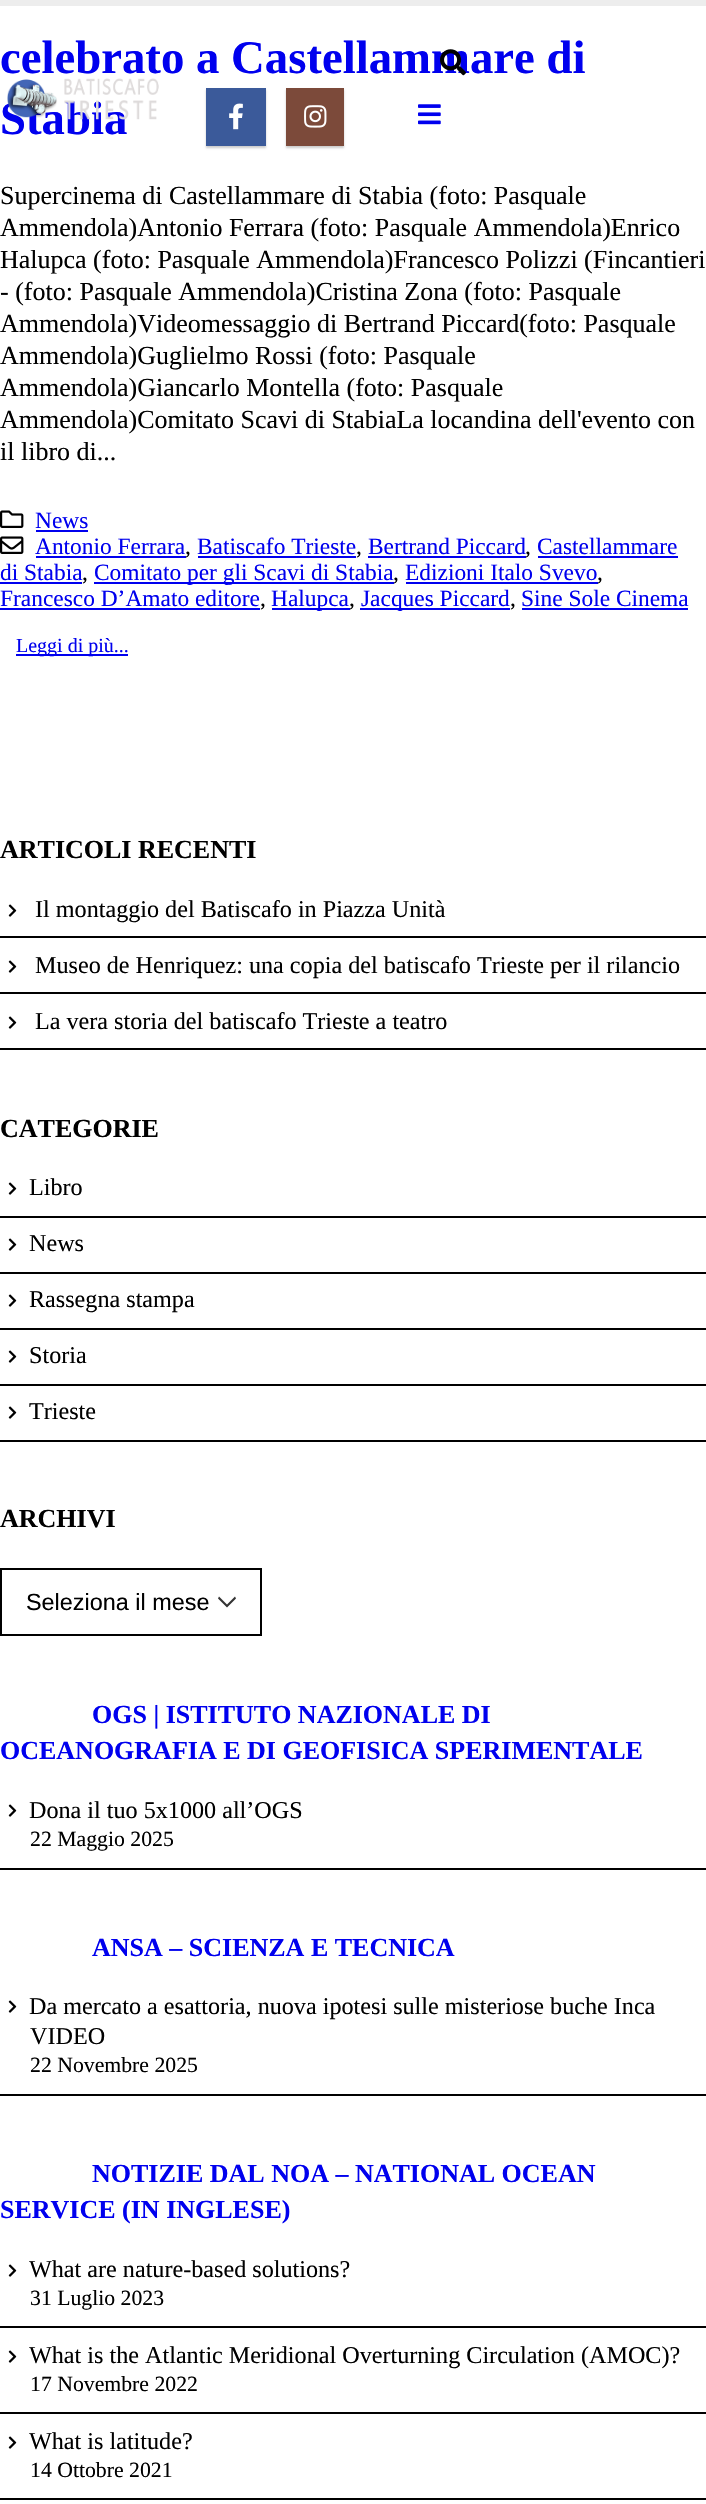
void draw(SkCanvas* canvas) {
	SkPaint fill;
	fill.setAntiAlias(true);
	auto makeFont = [&](const char* family, int weight, float size, bool italic = false) {
		SkFontStyle style(weight, SkFontStyle::kNormal_Width,
			italic ? SkFontStyle::kItalic_Slant : SkFontStyle::kUpright_Slant);
		SkFont result(fontMgr->matchFamilyStyle(family, style), size);
		result.setSubpixel(true);
		return result;
	};
	auto text = [&](const char* s, float x, float y, const SkFont& font) {
		canvas->drawString(s, x, y, font, fill);
	};
	auto box = [&](float l, float t, float r, float b) {
		canvas->drawRect(SkRect::MakeLTRB(l, t, r, b), fill);
	};
	auto picture = [&](const char* path, float l, float t, float r, float b) {
		auto image = SkImages::DeferredFromEncodedData(SkData::MakeFromFileName(path));
		canvas->drawImageRect(image, SkRect::MakeLTRB(l, t, r, b), SkSamplingOptions());
	};
	canvas->clear(0xFFFFFFFF);
	fill.setColor(0xFFEDEDED);
	box(0, 0, 706, 6);
	fill.setColor(0x33000000);
	fill.setMaskFilter(SkMaskFilter::MakeBlur(kNormal_SkBlurStyle, 1));
	canvas->drawRect(SkRect::MakeLTRB(206, 90, 266, 148), fill);
	fill.setMaskFilter(nullptr);
	fill.setColor(0xFF3B5A9A);
	box(206, 88, 266, 146);
	picture("image2.png", 229, 103, 243, 130);
	fill.setColor(0x33000000);
	fill.setMaskFilter(SkMaskFilter::MakeBlur(kNormal_SkBlurStyle, 1));
	canvas->drawRect(SkRect::MakeLTRB(286, 90, 344, 148), fill);
	fill.setMaskFilter(nullptr);
	fill.setColor(0xFF7C4A3A);
	box(286, 88, 344, 146);
	picture("image3.png", 304, 105, 327, 128);
	picture("image4.png", 418, 104, 441, 125);
	picture("image5.png", 0, 510, 24, 528);
	fill.setColor(0xFF0000EE);
	box(36, 530, 88, 532);
	picture("image6.png", 0, 536, 24, 554);
	box(36, 556, 186, 558);
	box(198, 556, 356, 558);
	box(368, 556, 526, 558);
	box(538, 556, 678, 558);
	box(0, 582, 82, 584);
	box(94, 582, 394, 584);
	box(406, 582, 598, 584);
	box(0, 608, 260, 610);
	box(272, 608, 350, 610);
	box(360, 608, 510, 610);
	box(522, 608, 688, 610);
	box(16, 654, 128, 656);
	fill.setColor(0xFF000000);
	box(0, 1048, 706, 1050);
	picture("image7.png", 8, 904, 17, 917);
	box(0, 936, 706, 938);
	picture("image7.png", 8, 960, 17, 973);
	box(0, 992, 706, 994);
	picture("image7.png", 8, 1016, 17, 1029);
	box(0, 1440, 706, 1442);
	picture("image7.png", 8, 1182, 17, 1195);
	box(0, 1216, 706, 1218);
	picture("image7.png", 8, 1238, 17, 1251);
	box(0, 1272, 706, 1274);
	picture("image7.png", 8, 1294, 17, 1307);
	box(0, 1328, 706, 1330);
	picture("image7.png", 8, 1350, 17, 1363);
	box(0, 1384, 706, 1386);
	picture("image7.png", 8, 1406, 17, 1419);
	fill.setColor(0xFF333333);
	canvas->drawPath(SkPathBuilder(SkPathFillType::kEvenOdd).moveTo(227, 1607.5f).lineTo(236, 1598.5f).lineTo(235, 1596.5f).lineTo(227, 1604.5f).lineTo(219, 1596.5f).lineTo(218, 1598.5f).close().detach(), fill);
	fill.setStyle(SkPaint::kStroke_Style);
	fill.setStrokeWidth(2);
	fill.setColor(0xFF000000);
	canvas->drawRect(SkRect::MakeLTRB(1, 1569, 261, 1635), fill);
	fill.setStyle(SkPaint::kFill_Style);
	box(0, 1868, 706, 1870);
	picture("image7.png", 8, 1804, 17, 1817);
	box(0, 2094, 706, 2096);
	picture("image7.png", 8, 2000, 17, 2013);
	box(0, 2498, 706, 2500);
	picture("image7.png", 8, 2264, 17, 2277);
	box(0, 2326, 706, 2328);
	picture("image7.png", 8, 2350, 17, 2363);
	box(0, 2412, 706, 2414);
	picture("image7.png", 8, 2436, 17, 2449);
	auto font1 = makeFont("Liberation Serif", 700, 46.75f);
	fill.setColor(0xFF0000EE);
	text("celebrato a Castellammare di", 0, 73, font1);
	picture("image1.png", 440, 49, 466, 76);
	text("Stabia", 0, 134, font1);
	picture("image0.png", 7, 78, 159, 120);
	auto font2 = makeFont("Liberation Serif", 400, 26);
	fill.setColor(0xFF000000);
	text("Supercinema di Castellammare di Stabia (foto: Pasquale", 0, 204, font2);
	text("Ammendola)Antonio Ferrara (foto: Pasquale Ammendola)Enrico", 0, 236, font2);
	text("Halupca (foto: Pasquale Ammendola)Francesco Polizzi (Fincantieri", 0, 268, font2);
	text("- (foto: Pasquale Ammendola)Cristina Zona (foto: Pasquale", 0, 300, font2);
	text("Ammendola)Videomessaggio di Bertrand Piccard(foto: Pasquale", 0, 332, font2);
	text("Ammendola)Guglielmo Rossi (foto: Pasquale", 0, 364, font2);
	text("Ammendola)Giancarlo Montella (foto: Pasquale", 0, 396, font2);
	text("Ammendola)Comitato Scavi di StabiaLa locandina dell'evento con", 0, 428, font2);
	text("il libro di...", 0, 460, font2);
	auto font3 = makeFont("Liberation Serif", 400, 23.4f);
	fill.setColor(0xFF0000EE);
	text("News", 35, 528, font3);
	text("Antonio Ferrara", 35, 554, font3);
	fill.setColor(0xFF000000);
	text(",", 185, 554, font3);
	fill.setColor(0xFF0000EE);
	text("Batiscafo Trieste", 197, 554, font3);
	fill.setColor(0xFF000000);
	text(",", 356, 554, font3);
	fill.setColor(0xFF0000EE);
	text("Bertrand Piccard", 368, 554, font3);
	fill.setColor(0xFF000000);
	text(",", 525, 554, font3);
	fill.setColor(0xFF0000EE);
	text("Castellammare", 537, 554, font3);
	text("di Stabia", 0, 580, font3);
	fill.setColor(0xFF000000);
	text(",", 82, 580, font3);
	fill.setColor(0xFF0000EE);
	text("Comitato per gli Scavi di Stabia", 94, 580, font3);
	fill.setColor(0xFF000000);
	text(",", 393, 580, font3);
	fill.setColor(0xFF0000EE);
	text("Edizioni Italo Svevo", 405, 580, font3);
	fill.setColor(0xFF000000);
	text(",", 597, 580, font3);
	fill.setColor(0xFF0000EE);
	text("Francesco D’Amato editore", 0, 606, font3);
	fill.setColor(0xFF000000);
	text(",", 260, 606, font3);
	fill.setColor(0xFF0000EE);
	text("Halupca", 271, 606, font3);
	fill.setColor(0xFF000000);
	text(",", 349, 606, font3);
	fill.setColor(0xFF0000EE);
	text("Jacques Piccard", 361, 606, font3);
	fill.setColor(0xFF000000);
	text(",", 510, 606, font3);
	fill.setColor(0xFF0000EE);
	text("Sine Sole Cinema", 521, 606, font3);
	auto font4 = makeFont("Liberation Serif", 400, 20);
	text("Leggi di più...", 16, 652, font4);
	auto font5 = makeFont("Liberation Serif", 700, 26);
	fill.setColor(0xFF000000);
	text("ARTICOLI RECENTI", 0, 858, font5);
	auto font6 = makeFont("Liberation Serif", 400, 24.15f);
	text("Il montaggio del Batiscafo in Piazza Unità", 35, 917, font6);
	text("Museo de Henriquez: una copia del batiscafo Trieste per il rilancio", 35, 973, font6);
	text("La vera storia del batiscafo Trieste a teatro", 35, 1029, font6);
	text("CATEGORIE", 0, 1137, font5);
	text("Libro", 29, 1195, font6);
	text("News", 29, 1251, font6);
	text("Rassegna stampa", 29, 1307, font6);
	text("Storia", 29, 1363, font6);
	text("Trieste", 29, 1419, font6);
	text("ARCHIVI", 0, 1527, font5);
	auto font7 = makeFont("Liberation Sans", 400, 23.4f);
	text("Seleziona il mese", 26, 1610, font7);
	fill.setColor(0xFF0000EE);
	text("OGS | ISTITUTO NAZIONALE DI", 92, 1723, font5);
	text("OCEANOGRAFIA E DI GEOFISICA SPERIMENTALE", 0, 1759, font5);
	fill.setColor(0xFF000000);
	text("Dona il tuo 5x1000 all’OGS", 29, 1818, font6);
	auto font8 = makeFont("Liberation Serif", 400, 21.75f);
	text("22 Maggio 2025", 30, 1846, font8);
	fill.setColor(0xFF0000EE);
	text("ANSA – SCIENZA E TECNICA", 92, 1956, font5);
	fill.setColor(0xFF000000);
	text("Da mercato a esattoria, nuova ipotesi sulle misteriose buche Inca", 29, 2014, font6);
	text("VIDEO", 30, 2044, font6);
	text("22 Novembre 2025", 30, 2072, font8);
	fill.setColor(0xFF0000EE);
	text("NOTIZIE DAL NOA – NATIONAL OCEAN", 92, 2182, font5);
	text("SERVICE (IN INGLESE)", 0, 2218, font5);
	fill.setColor(0xFF000000);
	text("What are nature-based solutions?", 29, 2277, font6);
	text("31 Luglio 2023", 30, 2305, font8);
	text("What is the Atlantic Meridional Overturning Circulation (AMOC)?", 29, 2363, font6);
	text("17 Novembre 2022", 30, 2391, font8);
	text("What is latitude?", 29, 2449, font6);
	text("14 Ottobre 2021", 30, 2477, font8);
}
